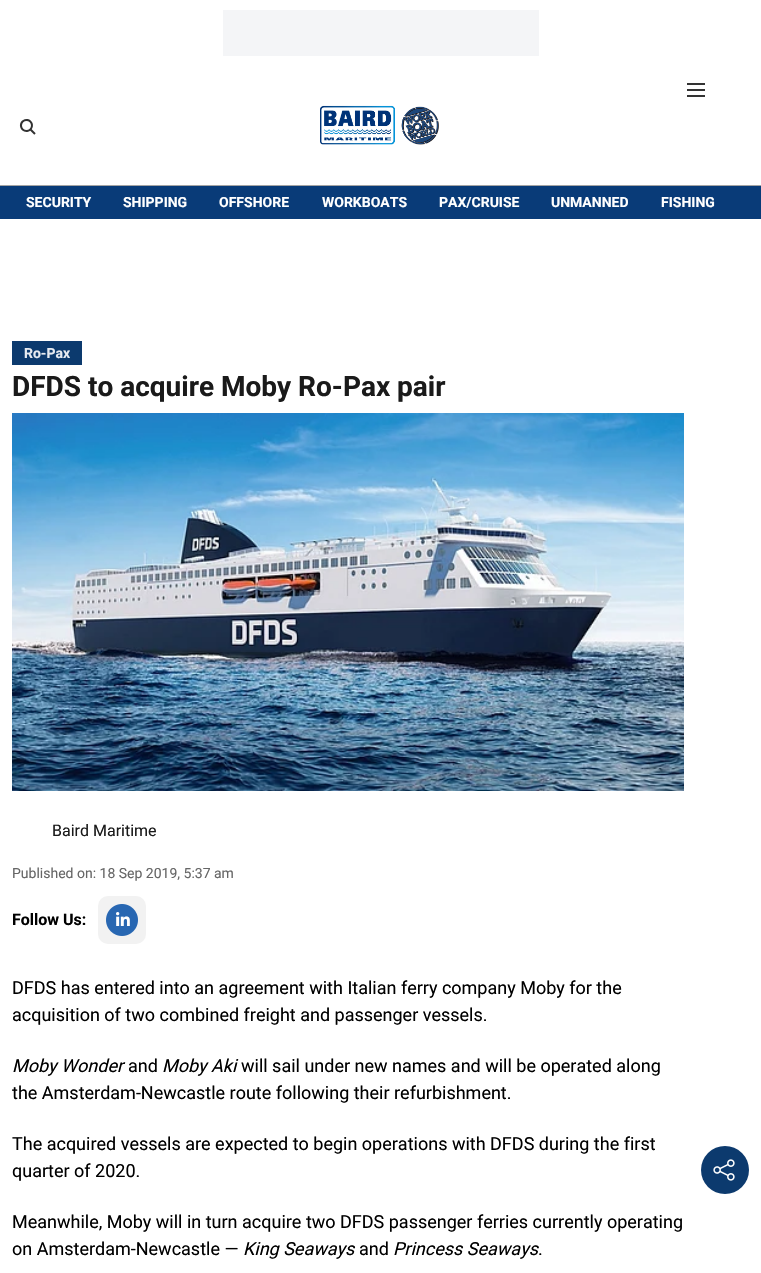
void draw(SkCanvas* canvas) {
	SkPaint fill;
	fill.setAntiAlias(true);
	auto makeFont = [&](const char* family, int weight, float size, bool italic = false) {
		SkFontStyle style(weight, SkFontStyle::kNormal_Width,
			italic ? SkFontStyle::kItalic_Slant : SkFontStyle::kUpright_Slant);
		SkFont result(fontMgr->matchFamilyStyle(family, style), size);
		result.setSubpixel(true);
		return result;
	};
	auto text = [&](const char* s, float x, float y, const SkFont& font) {
		canvas->drawString(s, x, y, font, fill);
	};
	auto box = [&](float l, float t, float r, float b) {
		canvas->drawRect(SkRect::MakeLTRB(l, t, r, b), fill);
	};
	auto roundBox = [&](float l, float t, float r, float b, float radius) {
		canvas->drawRoundRect(SkRect::MakeLTRB(l, t, r, b), radius, radius, fill);
	};
	auto picture = [&](const char* path, float l, float t, float r, float b) {
		auto image = SkImages::DeferredFromEncodedData(SkData::MakeFromFileName(path));
		canvas->drawImageRect(image, SkRect::MakeLTRB(l, t, r, b), SkSamplingOptions());
	};
	canvas->clear(0xFFFFFFFF);
	fill.setColor(0xFFF4F5F7);
	box(223, 10, 539, 56);
	fill.setColor(0xFFA4A4A4);
	box(0, 185, 761, 186);
	picture("image0.png", 687, 83, 705, 97);
	picture("image1.png", 19, 119, 36, 135);
	picture("image2.png", 320, 105, 439, 145);
	fill.setColor(0xFF093B78);
	box(0, 186, 761, 219);
	fill.setColor(0xFF0C3A6E);
	box(12, 341, 82, 365);
	picture("image3.png", 12, 413, 684, 791);
	fill.setColor(0xFFF2F2F2);
	roundBox(98, 896, 146, 944, 10);
	picture("image4.png", 106, 904, 138, 936);
	fill.setColor(0xFF0C3A6E);
	canvas->drawCircle(725, 1170, 24, fill);
	picture("image5.png", 713, 1159, 735, 1181);
	auto font1 = makeFont("Roboto", 700, 14);
	fill.setColor(0xFFFFFFFF);
	text("SECURITY", 26, 207, font1);
	text("SHIPPING", 123, 207, font1);
	text("OFFSHORE", 219, 207, font1);
	text("WORKBOATS", 322, 207, font1);
	text("PAX/CRUISE", 439, 207, font1);
	text("UNMANNED", 551, 207, font1);
	text("FISHING", 661, 207, font1);
	fill.setColor(0xFFE7EBF1);
	text("Ro-Pax", 24, 358, font1);
	auto font2 = makeFont("Roboto", 700, 28);
	fill.setColor(0xFF1A1A1A);
	text("DFDS to acquire Moby Ro-Pax pair", 12, 396, font2);
	auto font3 = makeFont("Roboto", 400, 16);
	text("Baird Maritime", 52, 836, font3);
	auto font4 = makeFont("Roboto", 400, 14);
	fill.setColor(0xFF666666);
	text("Published on: 18 Sep 2019, 5:37 am", 12, 878, font4);
	auto font5 = makeFont("Roboto", 700, 16);
	fill.setColor(0xFF000000);
	text("Follow Us:", 12, 925, font5);
	auto font6 = makeFont("Roboto", 400, 18);
	text("DFDS has entered into an agreement with Italian ferry company Moby for the", 12, 994, font6);
	text("acquisition of two combined freight and passenger vessels.", 12, 1021, font6);
	auto font7 = makeFont("Roboto", 400, 18, true);
	text("Moby Wonder", 12, 1072, font7);
	text("and", 128, 1072, font6);
	text("Moby Aki", 162, 1072, font7);
	text("will sail under new names and will be operated along", 241, 1072, font6);
	text("the Amsterdam-Newcastle route following their refurbishment.", 12, 1099, font6);
	text("The acquired vessels are expected to begin operations with DFDS during the first", 12, 1150, font6);
	text("quarter of 2020.", 12, 1177, font6);
	text("Meanwhile, Moby will in turn acquire two DFDS passenger ferries currently operating", 12, 1228, font6);
	text("on Amsterdam-Newcastle —", 12, 1255, font6);
	text("King Seaways", 243, 1255, font7);
	text("and", 359, 1255, font6);
	text("Princess Seaways", 393, 1255, font7);
	text(".", 538, 1255, font6);
}
